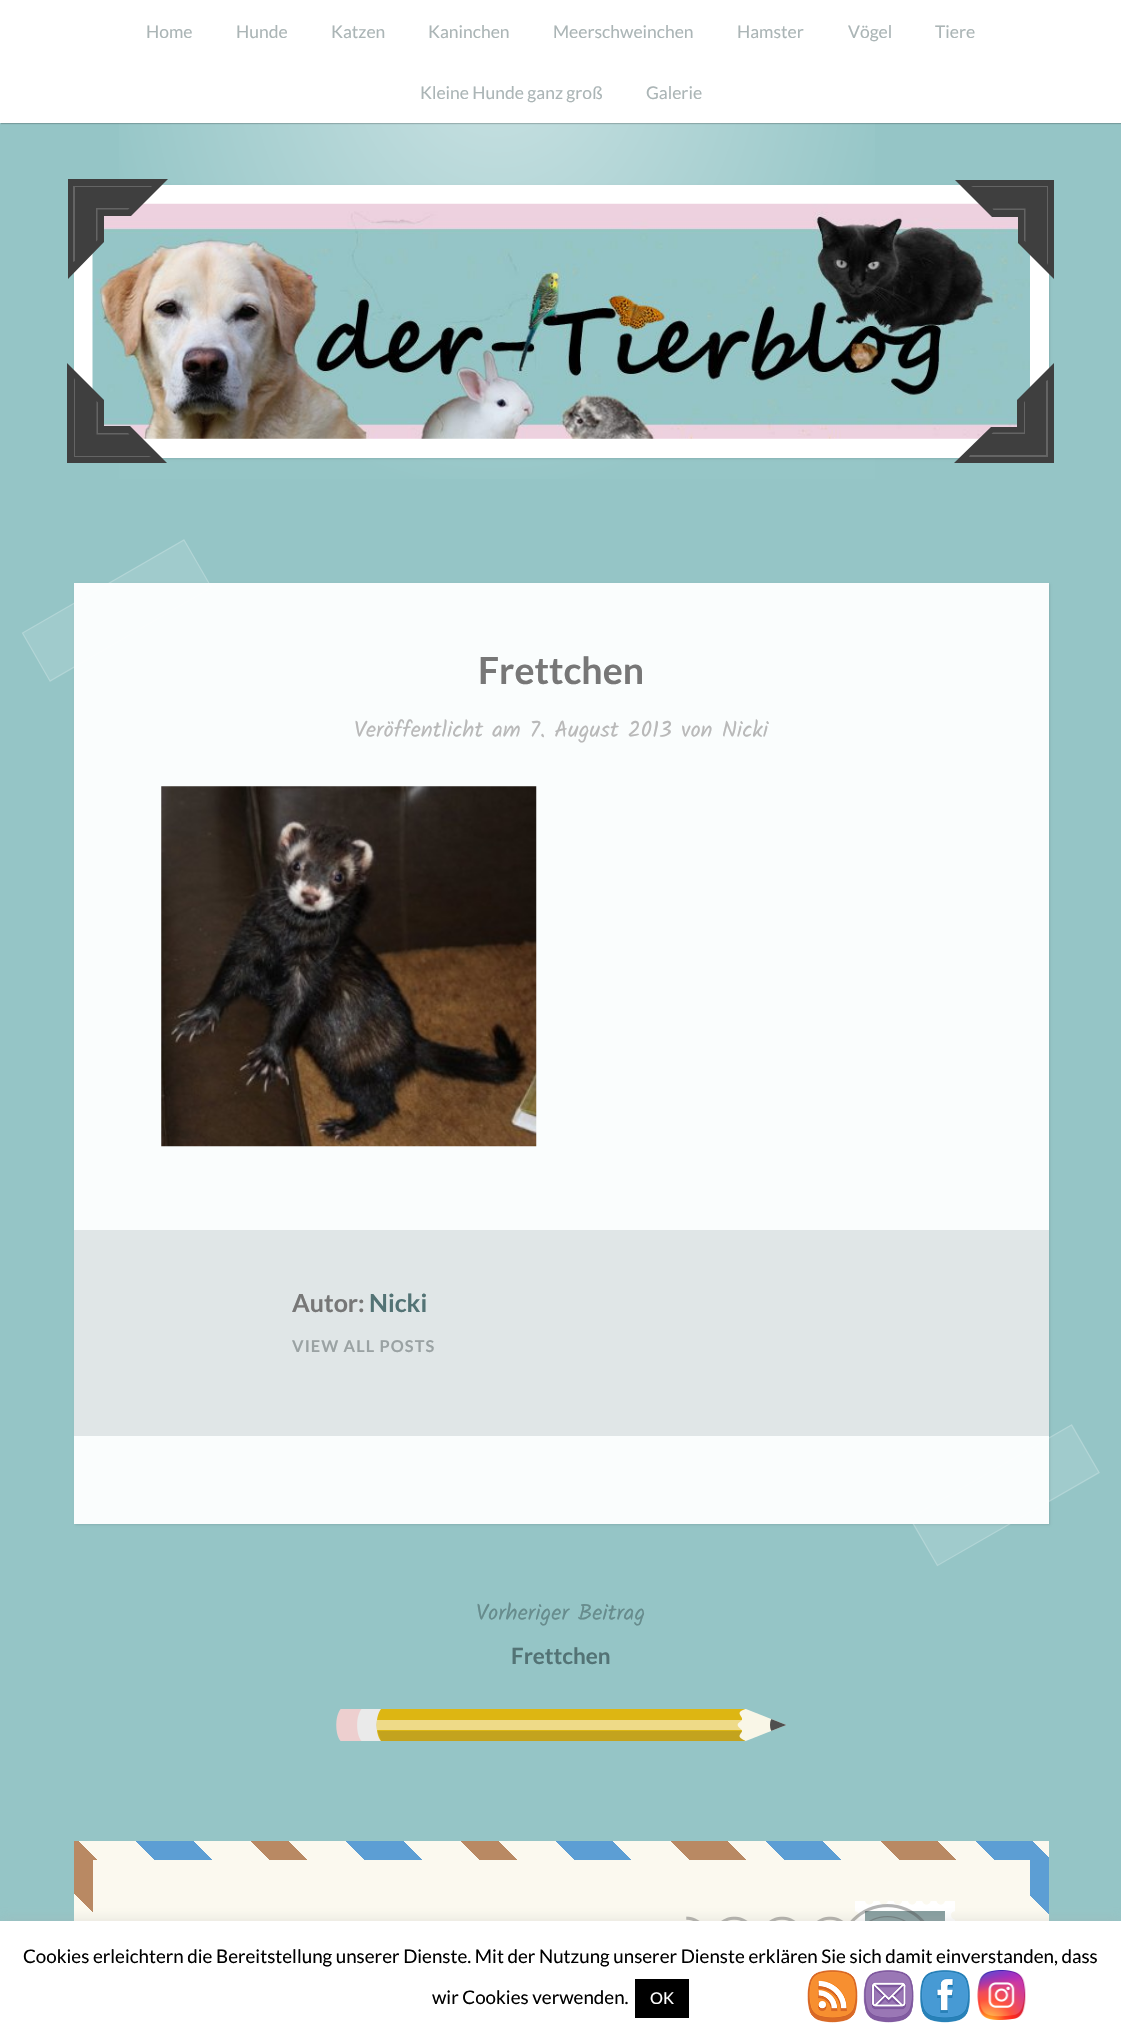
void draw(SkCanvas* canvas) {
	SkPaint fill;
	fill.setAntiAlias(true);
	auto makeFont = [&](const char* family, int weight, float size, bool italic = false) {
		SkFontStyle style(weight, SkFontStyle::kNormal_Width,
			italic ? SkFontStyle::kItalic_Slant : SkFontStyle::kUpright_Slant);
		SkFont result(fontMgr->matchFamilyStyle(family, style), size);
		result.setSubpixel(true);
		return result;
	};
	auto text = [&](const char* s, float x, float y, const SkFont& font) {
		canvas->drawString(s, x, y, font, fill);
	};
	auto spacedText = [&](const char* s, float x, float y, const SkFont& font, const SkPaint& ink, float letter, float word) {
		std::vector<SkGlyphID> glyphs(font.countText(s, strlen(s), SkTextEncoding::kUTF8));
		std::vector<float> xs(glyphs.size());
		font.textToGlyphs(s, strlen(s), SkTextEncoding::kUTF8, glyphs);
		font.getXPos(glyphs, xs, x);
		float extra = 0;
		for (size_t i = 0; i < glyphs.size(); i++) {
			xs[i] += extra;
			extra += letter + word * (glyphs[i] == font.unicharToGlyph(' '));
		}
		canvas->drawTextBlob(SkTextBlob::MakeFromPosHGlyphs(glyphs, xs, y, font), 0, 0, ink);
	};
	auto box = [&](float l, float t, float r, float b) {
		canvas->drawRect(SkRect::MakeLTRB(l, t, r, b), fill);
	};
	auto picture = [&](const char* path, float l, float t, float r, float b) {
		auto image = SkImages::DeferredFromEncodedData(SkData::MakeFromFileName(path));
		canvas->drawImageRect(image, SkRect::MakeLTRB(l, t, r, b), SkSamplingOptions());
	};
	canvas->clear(0xFF95C5C6);
	{
		const SkColor colors[] = {0xFFCAE2E3, 0xFF96C6C7, 0xFF96C6C7};
		const float stops[] = {0, 0.5f, 1};
		SkMatrix m = SkMatrix::Translate(497, 50).preScale(793, 884);
		fill.setShader(SkGradientShader::MakeRadial({0, 0}, 1, colors, stops, 3, SkTileMode::kClamp, 0, &m));
		fill.setAlpha(255);
	}
	box(119, 123, 875, 479);
	fill.setShader(nullptr);
	fill.setColor(0x33000000);
	fill.setMaskFilter(SkMaskFilter::MakeBlur(kNormal_SkBlurStyle, 0.5f));
	canvas->drawRect(SkRect::MakeLTRB(1, 1, 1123, 124), fill);
	fill.setMaskFilter(nullptr);
	fill.setColor(0xFFFFFFFF);
	box(0, 0, 1121, 123);
	fill.setColor(0x1A000000);
	fill.setMaskFilter(SkMaskFilter::MakeBlur(kNormal_SkBlurStyle, 1));
	canvas->drawRect(SkRect::MakeLTRB(75, 186, 1050, 459), fill);
	fill.setMaskFilter(nullptr);
	fill.setColor(0xFFFFFFFF);
	box(74, 185, 1049, 458);
	picture("image0.png", 92, 203, 1030, 439);
	fill.setColor(0xFF3F3F3F);
	canvas->drawPath(SkPathBuilder().moveTo(104, 216).lineTo(131, 216).lineTo(168, 179).lineTo(68, 179).lineTo(68, 279).lineTo(104, 242).close().detach(), fill);
	fill.setColor(0xFF646464);
	canvas->drawPath(SkPathBuilder().moveTo(115, 186).lineTo(73, 186).lineTo(73, 262).lineTo(75, 261).lineTo(75, 187).lineTo(151, 187).lineTo(152, 186).close().detach(), fill);
	canvas->drawPath(SkPathBuilder().moveTo(97.5f, 208).lineTo(96, 208).lineTo(96, 241.5f).lineTo(97.5f, 240).lineTo(97.5f, 209.5f).lineTo(128, 209.5f).lineTo(129.5f, 208).close().detach(), fill);
	fill.setColor(0xFF3F3F3F);
	canvas->drawPath(SkPathBuilder().moveTo(1018, 217).lineTo(992, 217).lineTo(955, 180).lineTo(1054, 180).lineTo(1054, 279).lineTo(1018, 243).close().detach(), fill);
	fill.setColor(0xFF646464);
	canvas->drawPath(SkPathBuilder().moveTo(1048, 227).lineTo(1048, 186).lineTo(971, 186).lineTo(973, 187).lineTo(1047, 187).lineTo(1047, 263).lineTo(1048, 265).close().detach(), fill);
	canvas->drawPath(SkPathBuilder().moveTo(1025.5f, 210).lineTo(1025.5f, 208.5f).lineTo(992.5f, 208.5f).lineTo(993.5f, 210).lineTo(1024, 210).lineTo(1024, 240.5f).lineTo(1025.5f, 242).close().detach(), fill);
	fill.setColor(0xFF3F3F3F);
	canvas->drawPath(SkPathBuilder().moveTo(104, 426).lineTo(104, 400).lineTo(67, 363).lineTo(67, 463).lineTo(167, 463).lineTo(130, 426).close().detach(), fill);
	fill.setColor(0xFF646464);
	canvas->drawPath(SkPathBuilder().moveTo(74, 416).lineTo(74, 457).lineTo(151, 457).lineTo(149, 456).lineTo(75, 456).lineTo(75, 380).lineTo(74, 378).close().detach(), fill);
	canvas->drawPath(SkPathBuilder().moveTo(96.5f, 433).lineTo(96.5f, 434.5f).lineTo(129.5f, 434.5f).lineTo(128, 433).lineTo(98, 433).lineTo(98, 402.5f).lineTo(96.5f, 401).close().detach(), fill);
	fill.setColor(0xFF3F3F3F);
	canvas->drawPath(SkPathBuilder().moveTo(1017, 427).lineTo(991, 427).lineTo(954, 463).lineTo(1054, 463).lineTo(1054, 363).lineTo(1017, 400).close().detach(), fill);
	fill.setColor(0xFF646464);
	canvas->drawPath(SkPathBuilder().moveTo(1007, 457).lineTo(1048, 457).lineTo(1048, 380).lineTo(1046, 381).lineTo(1046, 455).lineTo(970, 455).lineTo(969, 457).close().detach(), fill);
	canvas->drawPath(SkPathBuilder().moveTo(1024, 434).lineTo(1025, 434).lineTo(1025, 401).lineTo(1024, 402.5f).lineTo(1024, 432.5f).lineTo(993, 432.5f).lineTo(991.5f, 434).close().detach(), fill);
	canvas->save();
	canvas->clipPath(SkPathBuilder(SkPathFillType::kEvenOdd).moveTo(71, 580).lineTo(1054, 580).lineTo(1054, 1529).lineTo(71, 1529).close().moveTo(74, 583).lineTo(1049, 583).lineTo(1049, 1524).lineTo(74, 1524).close().detach(), true);
	fill.setColor(0x1A000000);
	fill.setMaskFilter(SkMaskFilter::MakeBlur(kNormal_SkBlurStyle, 1));
	canvas->drawRect(SkRect::MakeLTRB(75, 584, 1050, 1525), fill);
	fill.setMaskFilter(nullptr);
	canvas->restore();
	fill.setColor(0xF2FFFFFF);
	box(74, 583, 1049, 1524);
	fill.setColor(0x1AFFFFFF);
	canvas->drawPath(SkPathBuilder().moveTo(22, 633).lineTo(184, 539).lineTo(212, 588).lineTo(50, 682).close().detach(), fill);
	fill.setStyle(SkPaint::kStroke_Style);
	fill.setStrokeWidth(1.2f);
	fill.setColor(0x33FFFFFF);
	canvas->drawPath(SkPathBuilder().moveTo(22.5f, 633).lineTo(184, 540).lineTo(211.5f, 587.5f).lineTo(50, 681).close().detach(), fill);
	picture("image1.png", 161, 786, 537, 1147);
	fill.setStyle(SkPaint::kFill_Style);
	fill.setColor(0xFFE0E6E7);
	box(74, 1230, 1049, 1436);
	fill.setColor(0x1AFFFFFF);
	canvas->drawPath(SkPathBuilder().moveTo(909, 1518).lineTo(1072, 1424).lineTo(1100, 1473).lineTo(937, 1566).close().detach(), fill);
	fill.setStyle(SkPaint::kStroke_Style);
	fill.setColor(0x33FFFFFF);
	canvas->drawPath(SkPathBuilder().moveTo(910, 1518).lineTo(1071.5f, 1425).lineTo(1099, 1472.5f).lineTo(937.5f, 1565.5f).close().detach(), fill);
	picture("image2.png", 336, 1709, 786, 1741);
	fill.setStyle(SkPaint::kFill_Style);
	{
		const SkColor colors[] = {0xFFB98963, 0xFFB98963, 0xFFFBF9EF, 0xFFFBF9EF, 0xFF5C9ED4, 0xFF5C9ED4, 0xFFFBF9EF, 0xFFFBF9EF, 0xFFB98963, 0xFFB98963, 0xFFFBF9EF, 0xFFFBF9EF, 0xFF5C9ED4, 0xFF5C9ED4, 0xFFFBF9EF, 0xFFFBF9EF, 0xFFB98963, 0xFFB98963, 0xFFFBF9EF, 0xFFFBF9EF, 0xFF5C9ED4, 0xFF5C9ED4, 0xFFFBF9EF, 0xFFFBF9EF, 0xFFB98963, 0xFFB98963, 0xFFFBF9EF, 0xFFFBF9EF, 0xFF5C9ED4, 0xFF5C9ED4, 0xFFFBF9EF, 0xFFFBF9EF, 0xFFB98963, 0xFFB98963, 0xFFFBF9EF, 0xFFFBF9EF, 0xFF5C9ED4, 0xFF5C9ED4, 0xFFFBF9EF, 0xFFFBF9EF, 0xFFB98963, 0xFFB98963, 0xFFFBF9EF, 0xFFFBF9EF, 0xFF5C9ED4, 0xFF5C9ED4, 0xFFFBF9EF, 0xFFFBF9EF, 0xFFB98963, 0xFFB98963, 0xFFFBF9EF, 0xFFFBF9EF, 0xFF5C9ED4, 0xFF5C9ED4, 0xFFFBF9EF, 0xFFFBF9EF, 0xFFB98963, 0xFFB98963, 0xFFFBF9EF, 0xFFFBF9EF, 0xFF5C9ED4, 0xFF5C9ED4, 0xFFFBF9EF, 0xFFFBF9EF, 0xFFB98963, 0xFFB98963, 0xFFFBF9EF, 0xFFFBF9EF, 0xFF5C9ED4, 0xFF5C9ED4, 0xFFFBF9EF, 0xFFFBF9EF};
		const float stops[] = {0, 0.03f, 0.03f, 0.06f, 0.06f, 0.08f, 0.08f, 0.11f, 0.11f, 0.14f, 0.14f, 0.17f, 0.17f, 0.19f, 0.19f, 0.22f, 0.22f, 0.25f, 0.25f, 0.28f, 0.28f, 0.31f, 0.31f, 0.33f, 0.33f, 0.36f, 0.36f, 0.39f, 0.39f, 0.42f, 0.42f, 0.44f, 0.44f, 0.47f, 0.47f, 0.5f, 0.5f, 0.53f, 0.53f, 0.56f, 0.56f, 0.58f, 0.58f, 0.61f, 0.61f, 0.64f, 0.64f, 0.67f, 0.67f, 0.69f, 0.69f, 0.72f, 0.72f, 0.75f, 0.75f, 0.78f, 0.78f, 0.81f, 0.81f, 0.83f, 0.83f, 0.86f, 0.86f, 0.89f, 0.89f, 0.92f, 0.92f, 0.94f, 0.94f, 0.97f, 0.97f, 1};
		const SkPoint ends[] = {{94, 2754}, {1049, 1800}};
		fill.setShader(SkGradientShader::MakeLinear(ends, colors, stops, 72, SkTileMode::kClamp));
		fill.setAlpha(255);
	}
	box(74, 1841, 1049, 1921);
	fill.setShader(nullptr);
	fill.setColor(0xFFFBF9EF);
	box(93, 1860, 1030, 1921);
	picture("image3.png", 855, 1901, 955, 1921);
	picture("image4.png", 686, 1904, 925, 1921);
	fill.setColor(0x4DACABAB);
	fill.setMaskFilter(SkMaskFilter::MakeBlur(kNormal_SkBlurStyle, 6));
	canvas->drawRect(SkRect::MakeLTRB(0, 1920, 1121, 2031), fill);
	fill.setMaskFilter(nullptr);
	fill.setColor(0xFFFFFFFF);
	box(0, 1921, 1121, 2032);
	fill.setColor(0xFF000000);
	box(635, 1979, 689, 2018);
	picture("image5.png", 807, 1970, 858, 2023);
	picture("image6.png", 863, 1970, 914, 2023);
	picture("image7.png", 920, 1970, 970, 2023);
	picture("image8.png", 977, 1970, 1026, 2020);
	auto font1 = makeFont("Lato", 400, 17.5f);
	fill.setColor(0xFFABB5B6);
	text("Home", 146, 38, font1);
	text("Hunde", 236, 38, font1);
	text("Katzen", 331, 38, font1);
	text("Kaninchen", 428, 38, font1);
	text("Meerschweinchen", 553, 38, font1);
	text("Hamster", 737, 38, font1);
	text("Vögel", 848, 38, font1);
	text("Tiere", 935, 38, font1);
	text("Kleine Hunde ganz groß", 420, 99, font1);
	text("Galerie", 646, 99, font1);
	auto font2 = makeFont("Lato", 700, 37.5f);
	fill.setColor(0xFF777777);
	text("Frettchen", 478, 684, font2);
	auto font3 = makeFont("Kalam", 400, 22.5f);
	fill.setColor(0xFFB9B9B9);
	text("Veröffentlicht am 7. August 2013 von Nicki", 354, 737, font3);
	auto font4 = makeFont("Lato", 700, 25);
	fill.setColor(0xFF777777);
	text("Autor:", 292, 1312, font4);
	fill.setColor(0xFF537375);
	text("Nicki", 369, 1312, font4);
	auto font5 = makeFont("Lato", 700, 16.25f);
	fill.setColor(0xFF9AA2A3);
	spacedText("VIEW ALL POSTS", 292, 1352, font5, fill, 1.1f, 0);
	fill.setColor(0xFF678C8D);
	text("Vorheriger Beitrag", 476, 1620, font3);
	auto font6 = makeFont("Lato", 700, 22.5f);
	fill.setColor(0xFF537375);
	text("Frettchen", 511, 1664, font6);
	auto font7 = makeFont("Lato", 400, 18.75f);
	fill.setColor(0xFF000000);
	text("Cookies erleichtern die Bereitstellung unserer Dienste. Mit der Nutzung unserer Dienste erklären Sie sich damit einverstanden, dass", 23, 1963, font7);
	text("wir Cookies verwenden.", 432, 2004, font7);
	auto font8 = makeFont("Lato", 400, 16.25f);
	fill.setColor(0xFFFFFFFF);
	text("OK", 650, 2004, font8);
}
